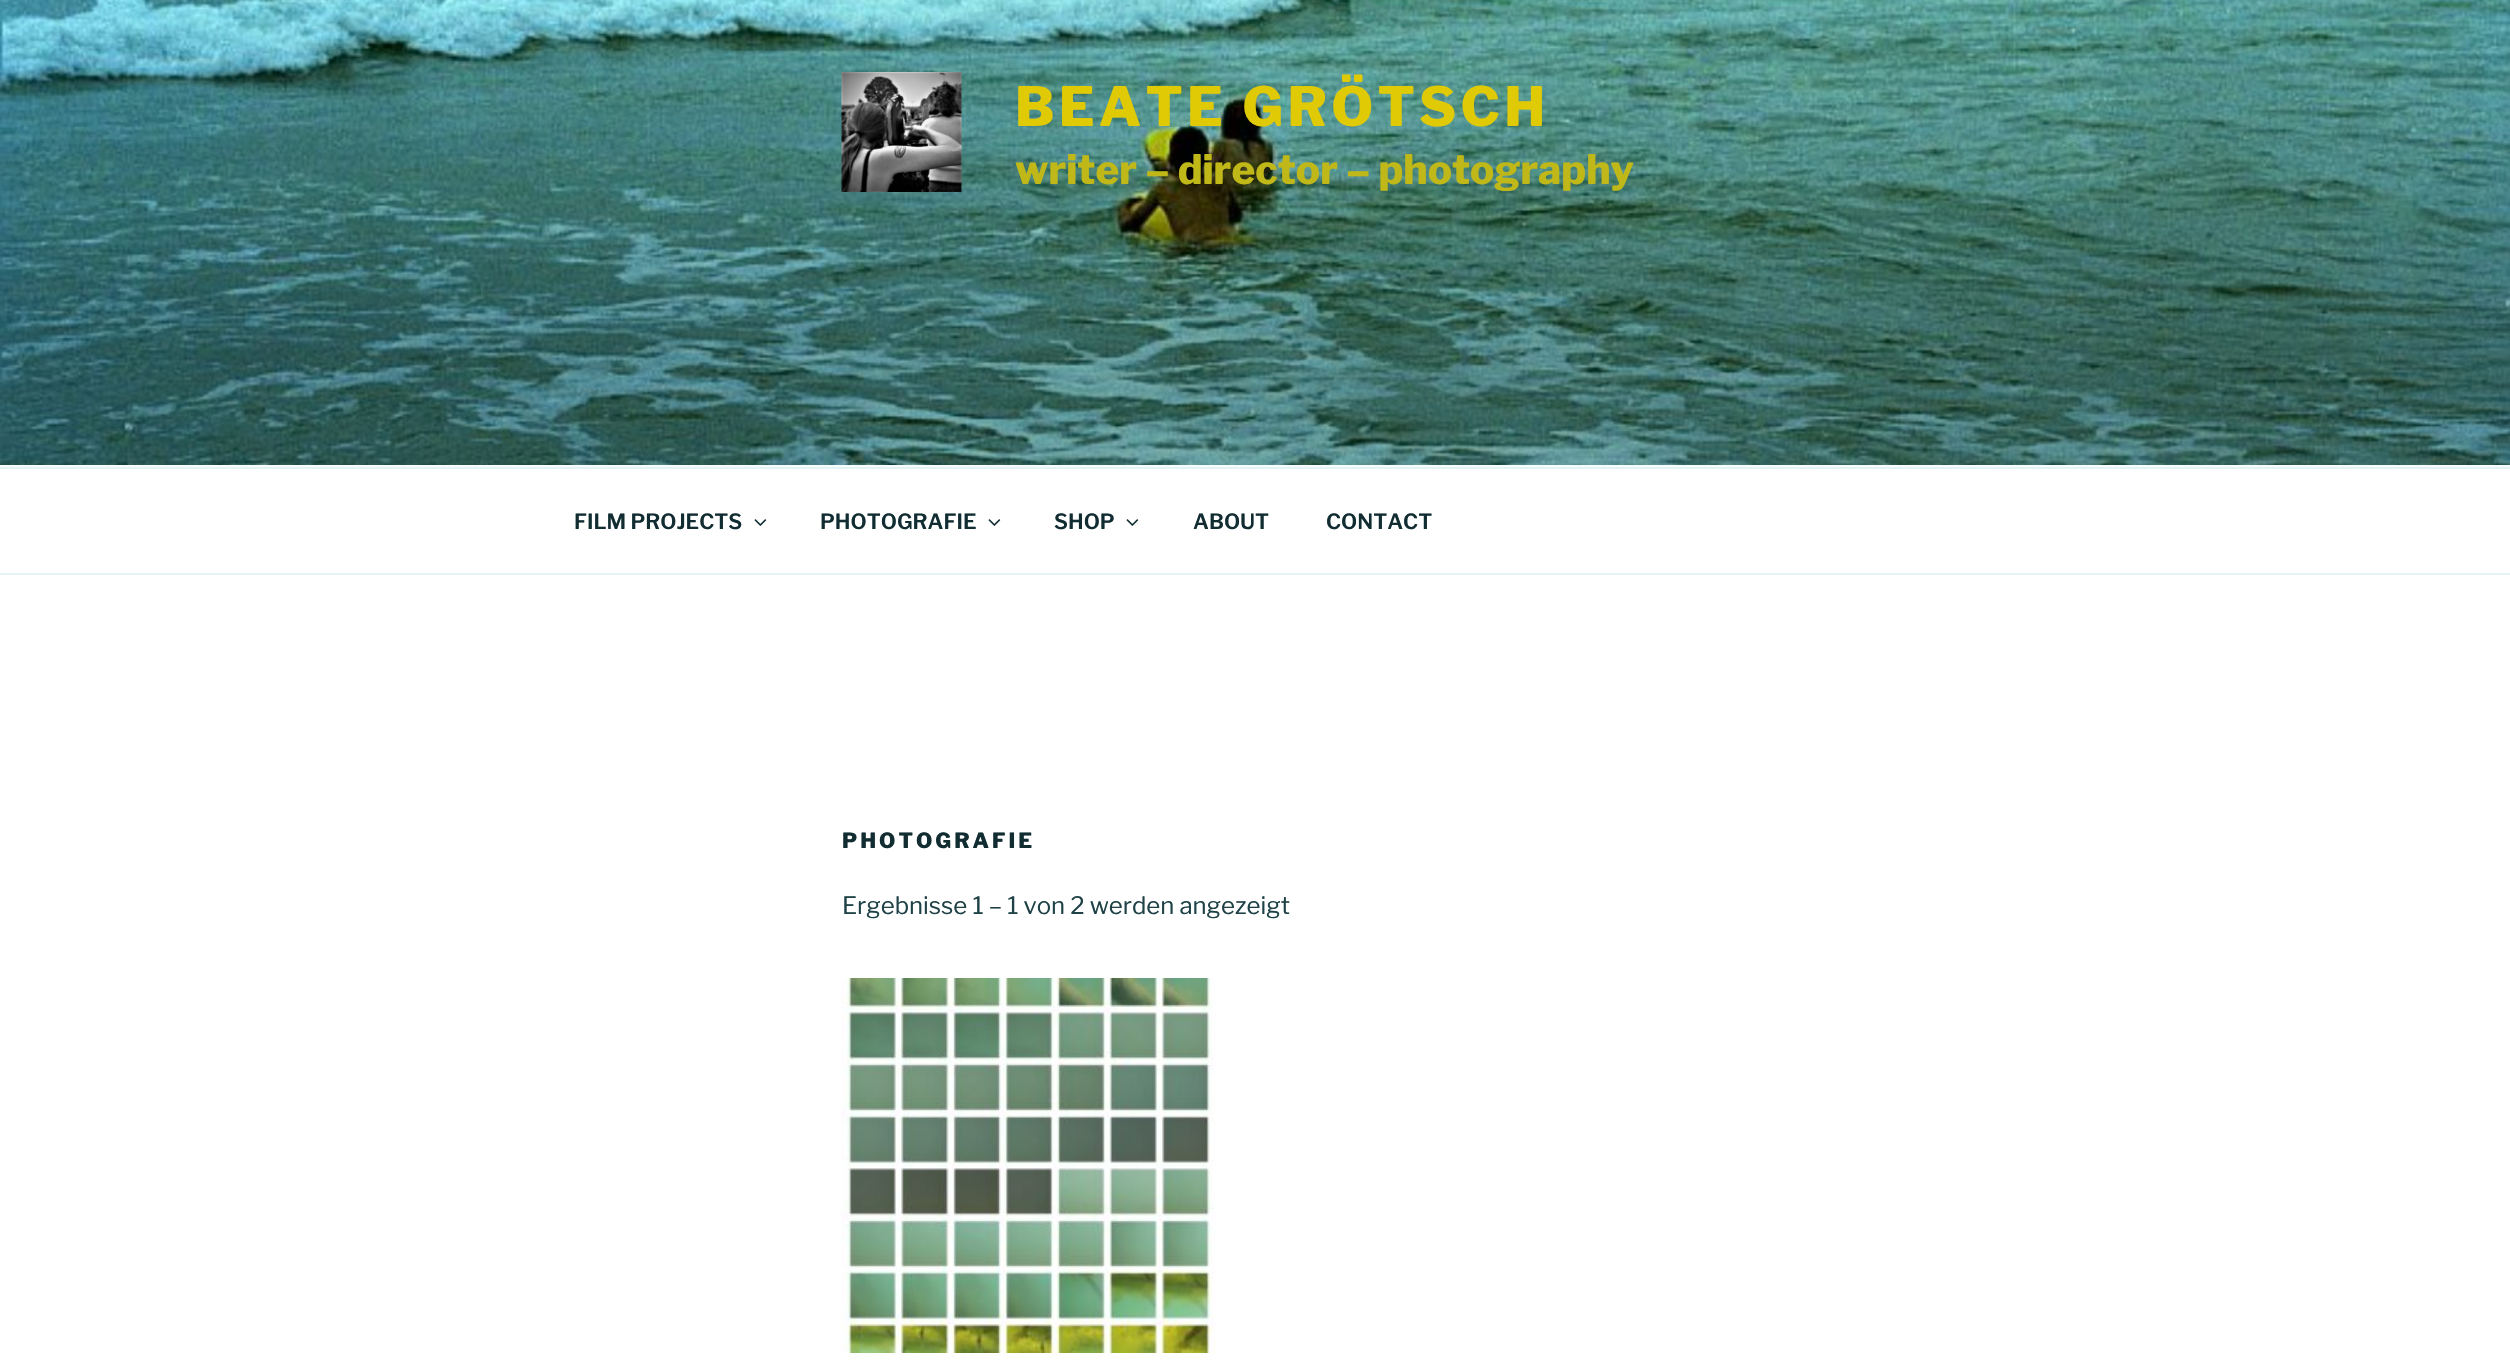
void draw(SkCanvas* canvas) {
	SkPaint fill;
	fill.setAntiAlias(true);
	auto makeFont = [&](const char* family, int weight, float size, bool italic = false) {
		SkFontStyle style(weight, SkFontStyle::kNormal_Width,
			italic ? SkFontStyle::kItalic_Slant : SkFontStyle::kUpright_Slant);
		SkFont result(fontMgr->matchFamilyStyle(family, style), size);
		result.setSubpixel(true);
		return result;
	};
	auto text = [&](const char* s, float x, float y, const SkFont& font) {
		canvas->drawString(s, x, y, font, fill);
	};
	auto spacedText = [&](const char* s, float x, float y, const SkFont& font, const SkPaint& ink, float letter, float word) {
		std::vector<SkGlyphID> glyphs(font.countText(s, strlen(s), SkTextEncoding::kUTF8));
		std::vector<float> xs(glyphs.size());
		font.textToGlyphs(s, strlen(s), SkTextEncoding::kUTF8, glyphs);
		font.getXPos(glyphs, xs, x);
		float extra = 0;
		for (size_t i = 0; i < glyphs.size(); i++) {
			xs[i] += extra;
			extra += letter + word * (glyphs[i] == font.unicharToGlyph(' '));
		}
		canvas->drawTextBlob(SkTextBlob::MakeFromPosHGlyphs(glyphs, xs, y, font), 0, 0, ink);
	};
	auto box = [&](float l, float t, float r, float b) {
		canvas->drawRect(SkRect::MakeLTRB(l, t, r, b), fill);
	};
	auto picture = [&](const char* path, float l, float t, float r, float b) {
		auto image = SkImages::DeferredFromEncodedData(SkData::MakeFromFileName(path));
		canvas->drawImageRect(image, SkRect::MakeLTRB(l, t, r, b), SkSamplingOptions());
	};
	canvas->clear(0xFFFFFFFF);
	fill.setColor(0xFFF7FCFC);
	box(0, 465, 2510, 467);
	picture("image0.png", 0, 0, 2510, 465);
	picture("image1.png", 841, 72, 962, 192);
	fill.setColor(0xFFE4F4F6);
	box(0, 467, 2510, 469);
	box(0, 573, 2510, 575);
	picture("image2.png", 754, 519, 767, 526);
	picture("image2.png", 988, 519, 1001, 526);
	picture("image2.png", 1126, 519, 1139, 526);
	picture("image3.png", 841, 978, 1217, 1353);
	auto font1 = makeFont("Libre Franklin", 800, 54);
	fill.setColor(0xFFE0CA06);
	spacedText("BEATE GRÖTSCH", 1015, 126, font1, fill, 4.25f, 0);
	auto font2 = makeFont("Libre Franklin", 800, 40.5f);
	fill.setColor(0xFFC0B819);
	text("writer – director – photography", 1015, 184, font2);
	auto font3 = makeFont("Libre Franklin", 600, 21);
	fill.setColor(0xFF112D32);
	text("FILM PROJECTS", 574, 529, font3);
	text("PHOTOGRAFIE", 820, 529, font3);
	text("SHOP", 1054, 529, font3);
	text("ABOUT", 1193, 529, font3);
	text("CONTACT", 1326, 529, font3);
	auto font4 = makeFont("Libre Franklin", 800, 21);
	spacedText("PHOTOGRAFIE", 842, 848, font4, fill, 3, 0);
	auto font5 = makeFont("Libre Franklin", 400, 24);
	fill.setColor(0xFF1F4247);
	text("Ergebnisse 1 – 1 von 2 werden angezeigt", 842, 914, font5);
}
